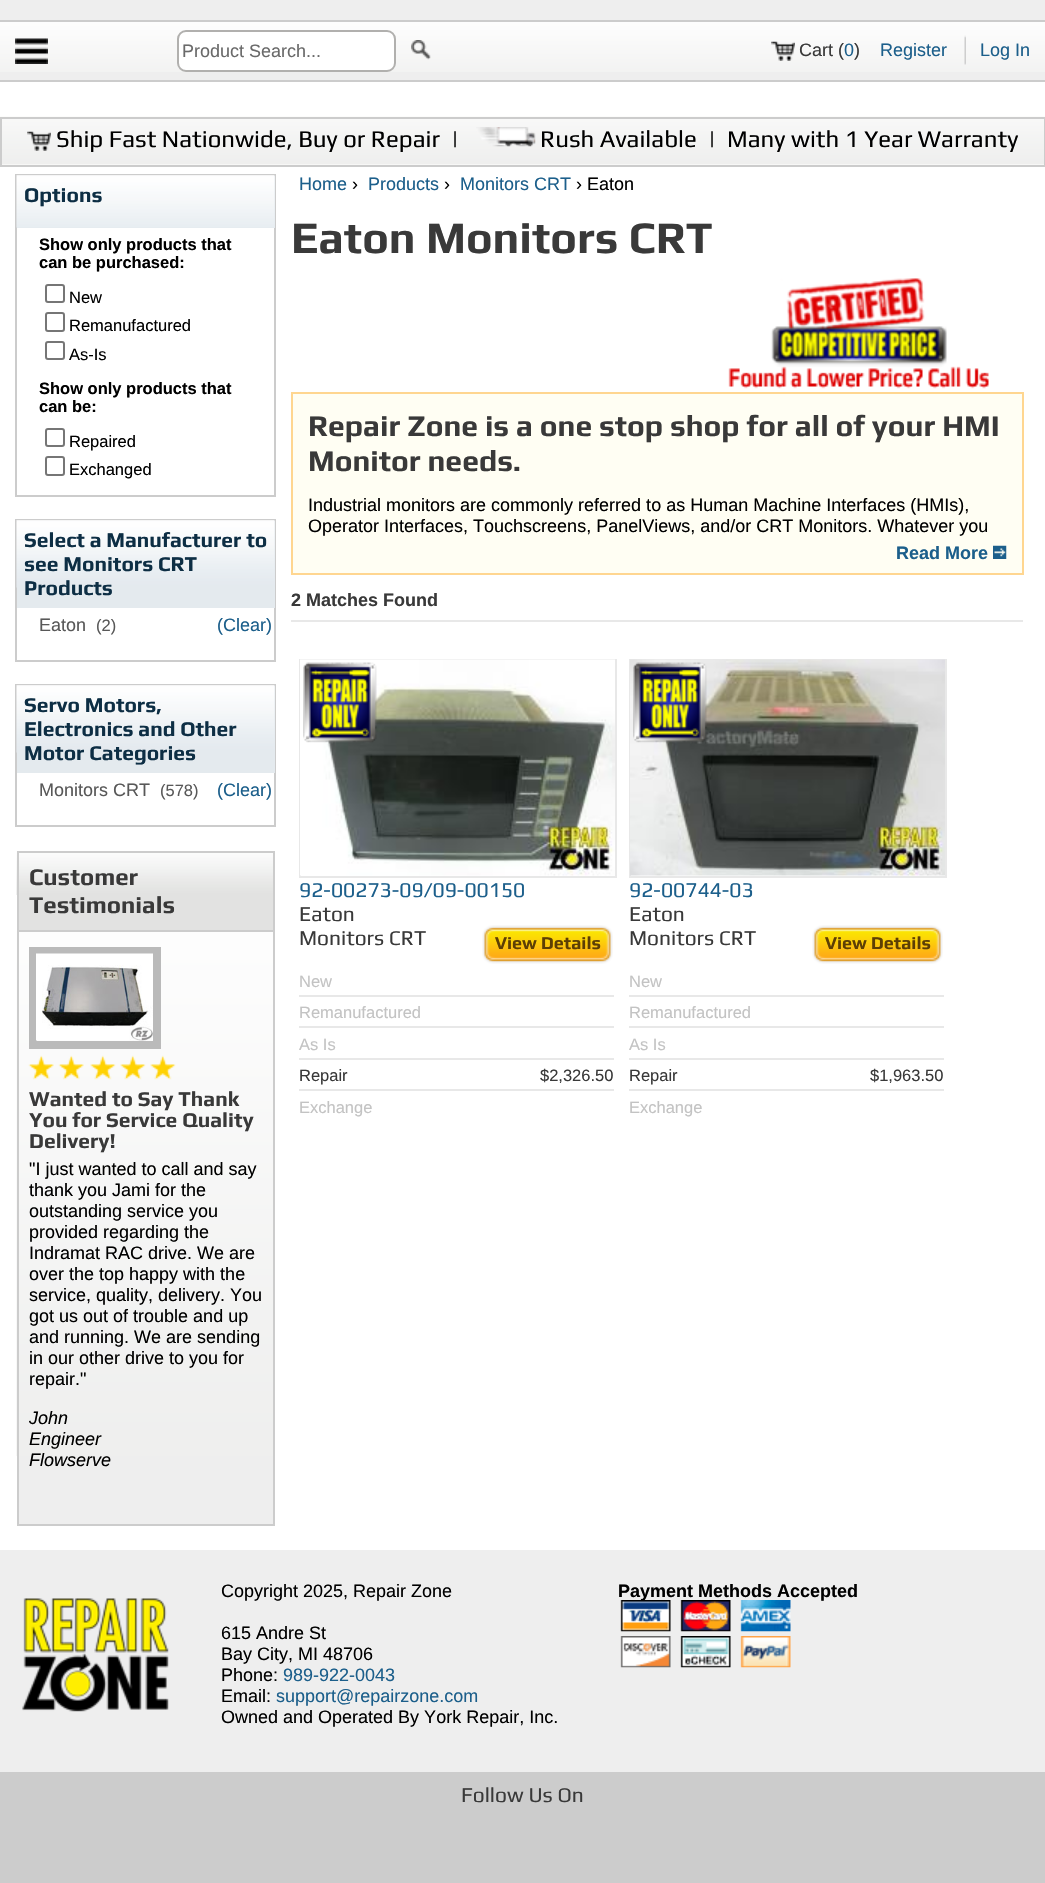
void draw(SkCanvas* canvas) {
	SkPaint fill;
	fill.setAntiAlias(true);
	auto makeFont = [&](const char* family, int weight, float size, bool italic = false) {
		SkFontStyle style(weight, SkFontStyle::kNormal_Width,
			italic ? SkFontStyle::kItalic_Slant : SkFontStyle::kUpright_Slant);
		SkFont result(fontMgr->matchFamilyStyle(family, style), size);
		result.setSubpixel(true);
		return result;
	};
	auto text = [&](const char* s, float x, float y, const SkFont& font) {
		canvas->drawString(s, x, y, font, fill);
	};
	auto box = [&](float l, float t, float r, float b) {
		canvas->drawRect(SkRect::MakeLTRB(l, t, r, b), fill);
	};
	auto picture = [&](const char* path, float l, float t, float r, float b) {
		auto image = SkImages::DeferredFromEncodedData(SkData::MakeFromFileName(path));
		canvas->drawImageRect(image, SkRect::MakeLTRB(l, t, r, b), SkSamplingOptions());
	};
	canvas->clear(0xFFEEEEEE);
	fill.setColor(0xFFFFFFFF);
	box(0, 82, 1045, 1550);
	picture("image0.png", 0, 22, 1045, 72);
	fill.setColor(0xFFCCCCCC);
	box(0, 20, 1045, 22);
	box(0, 80, 1045, 82);
	picture("image1.png", 15, 38, 48, 64);
	fill.setColor(0xFFFFFFFF);
	canvas->drawRoundRect(SkRect::MakeLTRB(178, 31, 395, 71), 8, 8, fill);
	fill.setStyle(SkPaint::kStroke_Style);
	fill.setStrokeWidth(2);
	fill.setColor(0xFFB1B0AE);
	canvas->drawRoundRect(SkRect::MakeLTRB(178, 31, 395, 71), 8, 8, fill);
	picture("image2.png", 411, 40, 431, 60);
	picture("image3.png", 771, 41, 795, 61);
	picture("image4.png", 964, 35, 966, 65);
	picture("image5.png", 0, 116, 1045, 165);
	fill.setColor(0xFFCCCCCC);
	canvas->drawRect(SkRect::MakeLTRB(1, 118, 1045, 166), fill);
	picture("image6.png", 27, 131, 51, 151);
	picture("image7.png", 476, 127, 536, 147);
	canvas->drawRect(SkRect::MakeLTRB(16, 175, 275, 496), fill);
	fill.setStyle(SkPaint::kFill_Style);
	fill.setColor(0xFFE4EAEE);
	box(17, 176, 275, 228);
	picture("image8.png", 16, 175, 275, 228);
	fill.setStyle(SkPaint::kStroke_Style);
	fill.setColor(0xFF767676);
	canvas->drawRoundRect(SkRect::MakeLTRB(46, 285, 64, 302), 2, 2, fill);
	canvas->drawRoundRect(SkRect::MakeLTRB(46, 313, 64, 331), 2, 2, fill);
	canvas->drawRoundRect(SkRect::MakeLTRB(46, 342, 64, 359), 2, 2, fill);
	canvas->drawRoundRect(SkRect::MakeLTRB(46, 429, 64, 446), 2, 2, fill);
	canvas->drawRoundRect(SkRect::MakeLTRB(46, 457, 64, 475), 2, 2, fill);
	fill.setColor(0xFFCCCCCC);
	canvas->drawRect(SkRect::MakeLTRB(16, 520, 275, 661), fill);
	fill.setStyle(SkPaint::kFill_Style);
	fill.setColor(0xFFE4EAEE);
	box(17, 521, 275, 608);
	picture("image9.png", 16, 520, 275, 588);
	fill.setStyle(SkPaint::kStroke_Style);
	fill.setColor(0xFFCCCCCC);
	canvas->drawRect(SkRect::MakeLTRB(16, 685, 275, 826), fill);
	fill.setStyle(SkPaint::kFill_Style);
	fill.setColor(0xFFE4EAEE);
	box(17, 686, 275, 773);
	picture("image9.png", 16, 685, 275, 753);
	fill.setColor(0xFFE2E2E1);
	box(19, 895, 273, 930);
	picture("image10.png", 16, 851, 273, 895);
	fill.setColor(0xFFCCCCCC);
	box(17, 851, 275, 853);
	box(273, 851, 275, 930);
	box(17, 851, 19, 930);
	fill.setColor(0xFFEEEEEE);
	box(19, 1456, 273, 1524);
	picture("image11.png", 16, 931, 273, 1456);
	fill.setStyle(SkPaint::kStroke_Style);
	fill.setColor(0xFFCCCCCC);
	canvas->drawRect(SkRect::MakeLTRB(18, 931, 274, 1525), fill);
	fill.setStrokeWidth(8);
	fill.setColor(0xFFBABABA);
	canvas->drawRect(SkRect::MakeLTRB(33, 951, 157, 1045), fill);
	picture("image12.png", 36, 953, 153, 1041);
	picture("image13.png", 28, 1055, 54, 1080);
	picture("image13.png", 58, 1055, 84, 1080);
	picture("image14.png", 90, 1055, 116, 1080);
	picture("image14.png", 120, 1055, 146, 1080);
	picture("image14.png", 150, 1055, 176, 1080);
	picture("image15.png", 728, 278, 989, 389);
	fill.setStyle(SkPaint::kFill_Style);
	fill.setColor(0xFFFFD690);
	box(291, 392, 1023, 394);
	box(1022, 392, 1024, 543);
	box(291, 392, 293, 543);
	fill.setColor(0xFFFFFEF3);
	box(293, 394, 1022, 573);
	fill.setColor(0xFFFFD690);
	box(1022, 543, 1024, 575);
	box(291, 573, 1023, 575);
	box(291, 543, 293, 575);
	picture("image16.png", 993, 545, 1007, 559);
	fill.setColor(0xFFE8E8E8);
	box(291, 620, 1023, 622);
	fill.setStyle(SkPaint::kStroke_Style);
	fill.setStrokeWidth(2);
	canvas->drawRect(SkRect::MakeLTRB(300, 660, 616, 877), fill);
	picture("image17.png", 300, 659, 615, 876);
	picture("image18.png", 303, 662, 377, 743);
	picture("image19.png", 482, 925, 613, 964);
	fill.setStyle(SkPaint::kFill_Style);
	box(299, 995, 614, 997);
	box(299, 1026, 614, 1028);
	box(299, 1058, 614, 1060);
	box(299, 1089, 614, 1091);
	fill.setStyle(SkPaint::kStroke_Style);
	canvas->drawRect(SkRect::MakeLTRB(630, 660, 946, 877), fill);
	picture("image20.png", 630, 659, 945, 876);
	picture("image21.png", 633, 662, 707, 743);
	picture("image19.png", 812, 925, 943, 964);
	fill.setStyle(SkPaint::kFill_Style);
	box(629, 995, 944, 997);
	box(629, 1026, 944, 1028);
	box(629, 1058, 944, 1060);
	box(629, 1089, 944, 1091);
	picture("image25.png", 620, 1636, 671, 1668);
	picture("image26.png", 680, 1636, 731, 1668);
	picture("image27.png", 740, 1636, 791, 1668);
	picture("image28.png", 22, 1598, 169, 1712);
	fill.setColor(0xFFCCCCCC);
	box(0, 1772, 1045, 1883);
	auto font1 = makeFont("Liberation Sans", 400, 18);
	fill.setColor(0xFF6A6A6A);
	text("Product Search...", 182, 57, font1);
	fill.setColor(0xFF393939);
	text("Cart (", 799, 56, font1);
	fill.setColor(0xFF1C5F8B);
	text("0", 844, 56, font1);
	fill.setColor(0xFF393939);
	text(")", 854, 56, font1);
	fill.setColor(0xFF1C5F8B);
	text("Register", 880, 56, font1);
	text("Log In", 980, 56, font1);
	auto font2 = makeFont("Play", 400, 24);
	fill.setColor(0xFF000000);
	text("Ship Fast Nationwide, Buy or Repair", 56, 147, font2);
	text("|", 451, 147, font2);
	text("Rush Available", 540, 147, font2);
	text("|", 708, 147, font2);
	text("Many with 1 Year Warranty", 727, 147, font2);
	auto font3 = makeFont("Play", 700, 21);
	fill.setColor(0xFF0D2E44);
	text("Options", 24, 202, font3);
	auto font4 = makeFont("Liberation Sans", 700, 16.5f);
	fill.setColor(0xFF000000);
	text("Show only products that", 39, 250, font4);
	text("can be purchased:", 39, 268, font4);
	auto font5 = makeFont("Liberation Sans", 400, 16.5f);
	text("New", 69, 303, font5);
	text("Remanufactured", 69, 331, font5);
	text("As-Is", 69, 360, font5);
	text("Show only products that", 39, 394, font4);
	text("can be:", 39, 412, font4);
	text("Repaired", 69, 447, font5);
	text("Exchanged", 69, 475, font5);
	fill.setColor(0xFF0D2E44);
	text("Select a Manufacturer to", 24, 547, font3);
	text("see Monitors CRT", 24, 571, font3);
	text("Products", 24, 595, font3);
	fill.setColor(0xFF585858);
	text("Eaton", 39, 631, font1);
	text("(2)", 96, 631, font5);
	fill.setColor(0xFF1C5F8B);
	text("(Clear)", 217, 631, font1);
	fill.setColor(0xFF0D2E44);
	text("Servo Motors,", 24, 712, font3);
	text("Electronics and Other", 24, 736, font3);
	text("Motor Categories", 24, 760, font3);
	fill.setColor(0xFF585858);
	text("Monitors CRT", 39, 796, font1);
	text("(578)", 160, 796, font5);
	fill.setColor(0xFF1C5F8B);
	text("(Clear)", 217, 796, font1);
	auto font6 = makeFont("Play", 700, 24);
	fill.setColor(0xFF393939);
	text("Customer", 29, 885, font6);
	text("Testimonials", 29, 913, font6);
	text("Wanted to Say Thank", 29, 1106, font3);
	text("You for Service Quality", 29, 1127, font3);
	text("Delivery!", 29, 1148, font3);
	fill.setColor(0xFF000000);
	text("\"I just wanted to call and say", 29, 1175, font1);
	text("thank you Jami for the", 29, 1196, font1);
	text("outstanding service you", 29, 1217, font1);
	text("provided regarding the", 29, 1238, font1);
	text("Indramat RAC drive. We are", 29, 1259, font1);
	text("over the top happy with the", 29, 1280, font1);
	text("service, quality, delivery. You", 29, 1301, font1);
	text("got us out of trouble and up", 29, 1322, font1);
	text("and running. We are sending", 29, 1343, font1);
	text("in our other drive to you for", 29, 1364, font1);
	text("repair.\"", 29, 1385, font1);
	auto font7 = makeFont("Liberation Sans", 400, 18, true);
	text("John", 29, 1424, font7);
	text("Engineer", 29, 1445, font7);
	text("Flowserve", 29, 1466, font7);
	fill.setColor(0xFF1C5F8B);
	text("Home", 299, 190, font1);
	fill.setColor(0xFF000000);
	text("›", 352, 190, font1);
	fill.setColor(0xFF1C5F8B);
	text("Products", 368, 190, font1);
	fill.setColor(0xFF000000);
	text("›", 444, 190, font1);
	fill.setColor(0xFF1C5F8B);
	text("Monitors CRT", 460, 190, font1);
	fill.setColor(0xFF000000);
	text("› Eaton", 576, 190, font1);
	auto font8 = makeFont("Play", 700, 45);
	fill.setColor(0xFF393939);
	text("Eaton Monitors CRT", 291, 253, font8);
	auto font9 = makeFont("Play", 700, 30);
	text("Repair Zone is a one stop shop for all of your HMI", 308, 436, font9);
	text("Monitor needs.", 308, 471, font9);
	fill.setColor(0xFF000000);
	text("Industrial monitors are commonly referred to as Human Machine Interfaces (HMIs),", 308, 511, font1);
	text("Operator Interfaces, Touchscreens, PanelViews, and/or CRT Monitors. Whatever you", 308, 532, font1);
	auto font10 = makeFont("Liberation Sans", 700, 18);
	fill.setColor(0xFF1C5F8B);
	text("Read More", 896, 559, font10);
	fill.setColor(0xFF393939);
	text("2 Matches Found", 291, 606, font10);
	auto font11 = makeFont("Play", 400, 21);
	fill.setColor(0xFF1C5F8B);
	text("92-00273-09/09-00150", 299, 897, font11);
	fill.setColor(0xFF393939);
	text("Eaton", 299, 921, font11);
	text("Monitors CRT", 299, 945, font11);
	auto font12 = makeFont("Play", 700, 18);
	fill.setColor(0xFF5D3F04);
	text("View Details", 495, 949, font12);
	fill.setColor(0xFFC3C3C3);
	text("New", 299, 987, font5);
	text("Remanufactured", 299, 1018, font5);
	text("As Is", 299, 1050, font5);
	fill.setColor(0xFF393939);
	text("Repair", 299, 1081, font5);
	text("$2,326.50", 540, 1081, font5);
	fill.setColor(0xFFC3C3C3);
	text("Exchange", 299, 1113, font5);
	fill.setColor(0xFF1C5F8B);
	text("92-00744-03", 629, 897, font11);
	fill.setColor(0xFF393939);
	text("Eaton", 629, 921, font11);
	text("Monitors CRT", 629, 945, font11);
	fill.setColor(0xFF5D3F04);
	text("View Details", 825, 949, font12);
	fill.setColor(0xFFC3C3C3);
	text("New", 629, 987, font5);
	text("Remanufactured", 629, 1018, font5);
	text("As Is", 629, 1050, font5);
	fill.setColor(0xFF393939);
	text("Repair", 629, 1081, font5);
	text("$1,963.50", 870, 1081, font5);
	fill.setColor(0xFFC3C3C3);
	text("Exchange", 629, 1113, font5);
	fill.setColor(0xFF000000);
	text("Copyright 2025, Repair Zone", 221, 1597, font1);
	text("615 Andre St", 221, 1639, font1);
	text("Bay City, MI 48706", 221, 1660, font1);
	text("Phone:", 221, 1681, font1);
	fill.setColor(0xFF1C5F8B);
	text("989-922-0043", 283, 1681, font1);
	fill.setColor(0xFF000000);
	text("Email:", 221, 1702, font1);
	fill.setColor(0xFF1C5F8B);
	text("support@repairzone.com", 276, 1702, font1);
	fill.setColor(0xFF000000);
	text("Owned and Operated By York Repair, Inc.", 221, 1723, font1);
	text("Payment Methods Accepted", 618, 1597, font10);
	picture("image22.png", 620, 1600, 671, 1632);
	picture("image23.png", 680, 1600, 731, 1632);
	picture("image24.png", 740, 1600, 791, 1632);
	fill.setColor(0xFF393939);
	text("Follow Us On", 461, 1802, font11);
}
